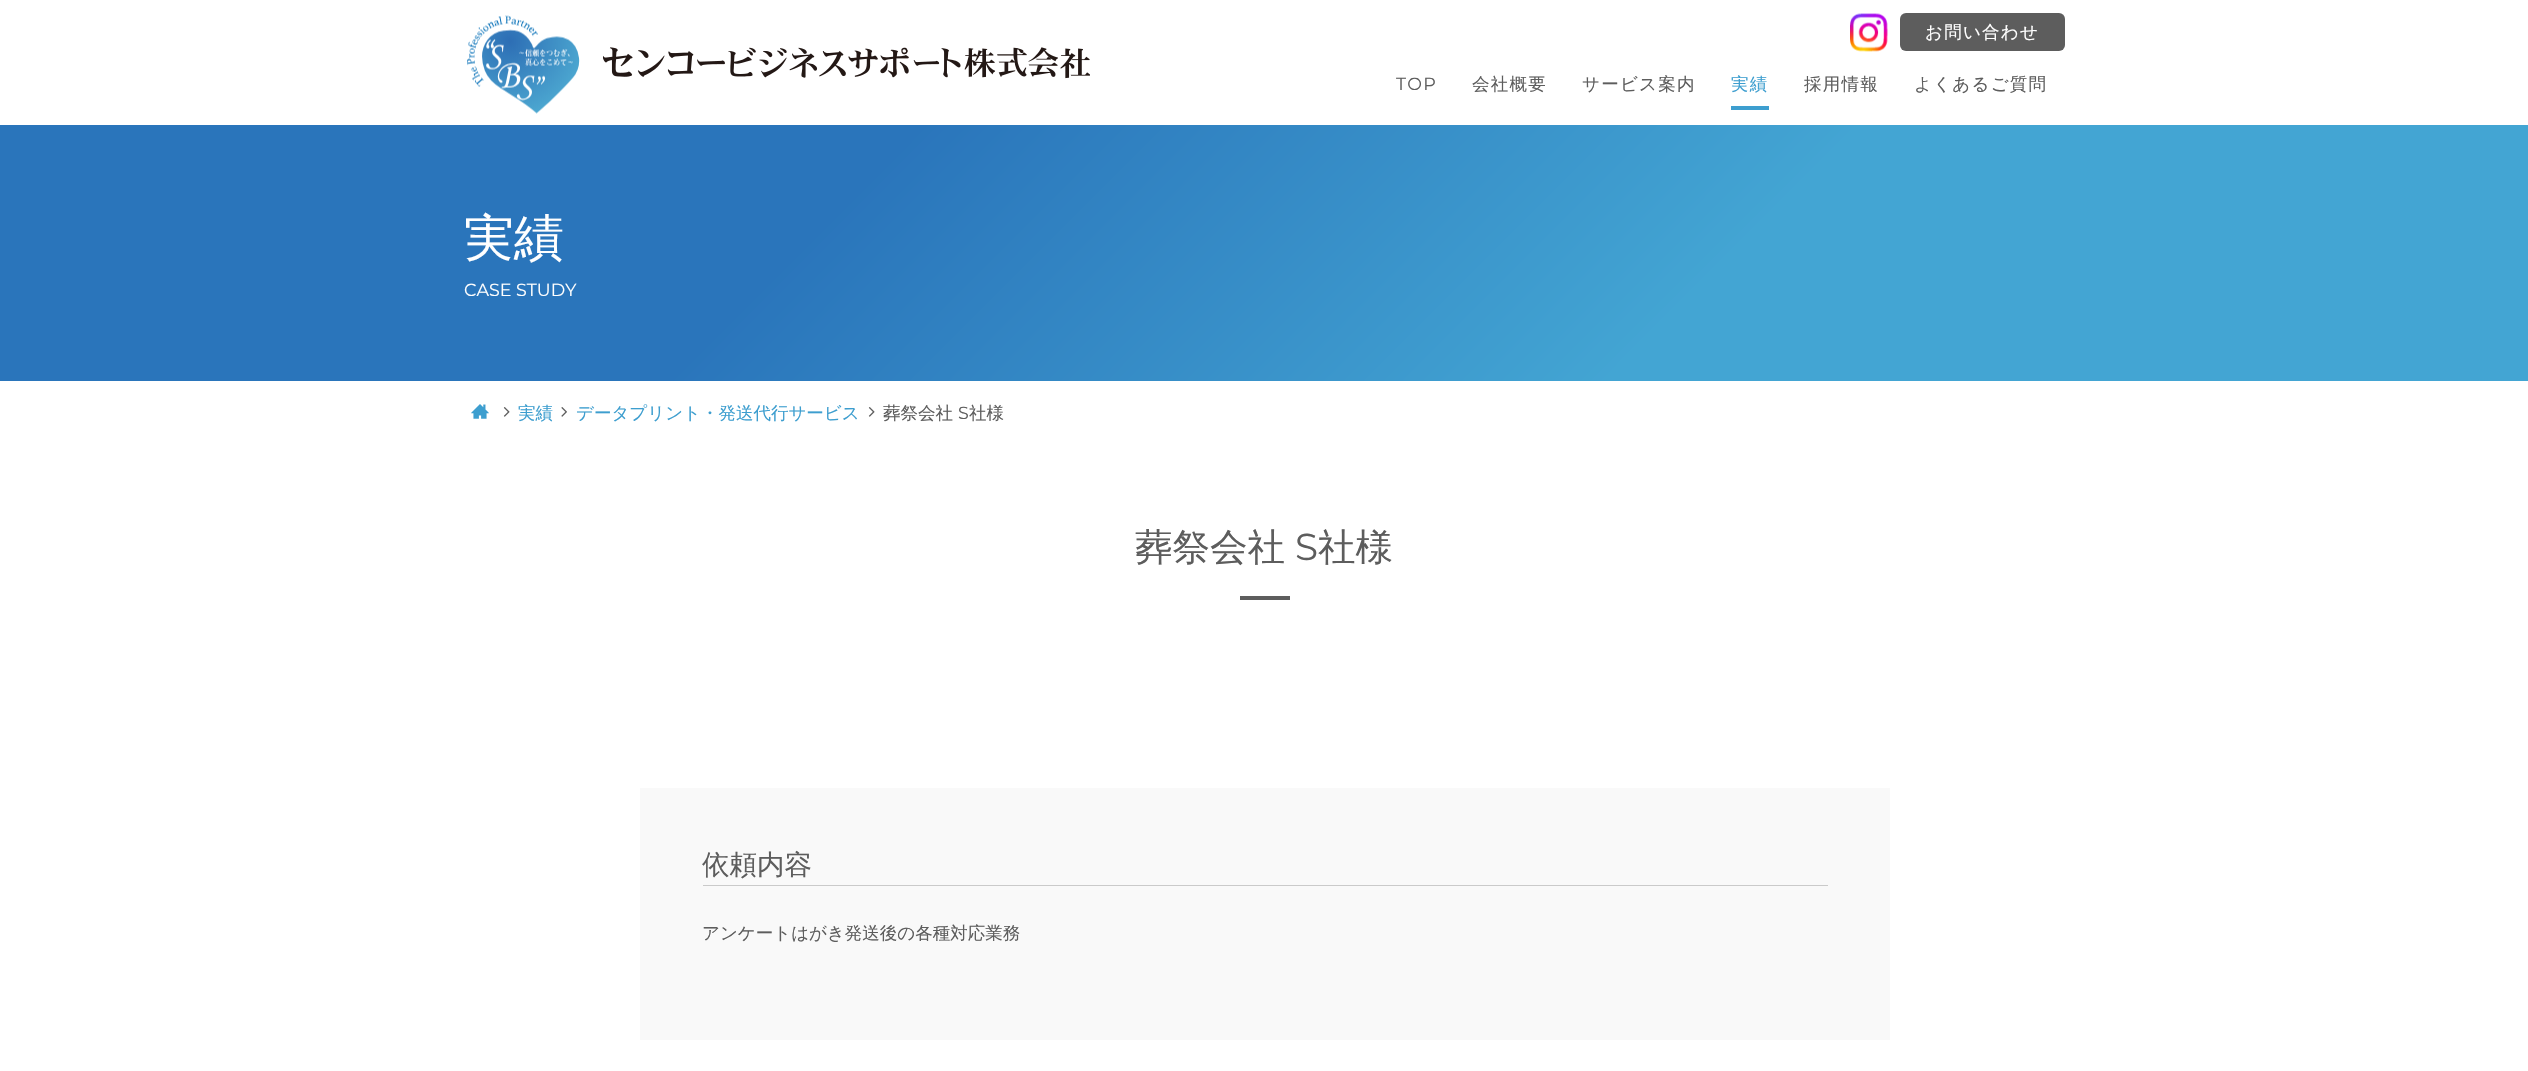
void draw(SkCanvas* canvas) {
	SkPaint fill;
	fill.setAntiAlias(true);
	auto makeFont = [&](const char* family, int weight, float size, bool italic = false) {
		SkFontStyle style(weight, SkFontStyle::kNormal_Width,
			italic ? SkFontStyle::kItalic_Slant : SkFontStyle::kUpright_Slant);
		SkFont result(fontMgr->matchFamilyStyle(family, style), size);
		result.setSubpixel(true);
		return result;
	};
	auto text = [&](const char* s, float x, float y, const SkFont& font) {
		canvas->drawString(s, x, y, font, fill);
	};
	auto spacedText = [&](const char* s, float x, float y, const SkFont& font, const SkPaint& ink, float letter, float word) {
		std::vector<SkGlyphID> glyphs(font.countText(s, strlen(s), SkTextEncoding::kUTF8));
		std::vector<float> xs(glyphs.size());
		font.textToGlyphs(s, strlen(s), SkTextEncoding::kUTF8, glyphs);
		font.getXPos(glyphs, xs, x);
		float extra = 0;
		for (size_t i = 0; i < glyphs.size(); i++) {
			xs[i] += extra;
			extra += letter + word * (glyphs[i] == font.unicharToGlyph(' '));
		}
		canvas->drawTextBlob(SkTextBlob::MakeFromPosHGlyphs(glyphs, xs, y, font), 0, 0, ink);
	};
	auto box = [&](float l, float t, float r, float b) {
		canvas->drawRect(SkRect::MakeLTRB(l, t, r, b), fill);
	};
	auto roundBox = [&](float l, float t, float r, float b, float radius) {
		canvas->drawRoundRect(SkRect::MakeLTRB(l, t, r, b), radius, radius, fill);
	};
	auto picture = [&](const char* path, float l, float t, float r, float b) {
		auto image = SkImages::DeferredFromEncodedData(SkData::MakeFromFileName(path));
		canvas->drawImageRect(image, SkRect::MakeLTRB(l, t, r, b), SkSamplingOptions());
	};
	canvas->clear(0xFFFFFFFF);
	picture("image0.png", 467, 15, 580, 114);
	picture("image1.png", 603, 47, 1090, 79);
	picture("image2.png", 1850, 13, 1888, 52);
	fill.setColor(0xFF5D5D5D);
	roundBox(1900, 13, 2065, 51, 6);
	fill.setColor(0xFF3D9ECF);
	box(1731, 106, 1769, 110);
	{
		const SkColor colors[] = {0xFF2A75BB, 0xFF2A75BB, 0xFF43A5D3, 0xFF43A5D3};
		const float stops[] = {0, 0.33f, 0.67f, 1};
		const SkPoint ends[] = {{568, -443}, {1961, 949}};
		fill.setShader(SkGradientShader::MakeLinear(ends, colors, stops, 4, SkTileMode::kClamp));
		fill.setAlpha(255);
	}
	box(0, 125, 2528, 381);
	picture("image3.png", 471, 404, 489, 419);
	picture("image4.png", 503, 407, 510, 417);
	picture("image5.png", 561, 407, 567, 417);
	picture("image4.png", 868, 407, 875, 417);
	fill.setShader(nullptr);
	fill.setColor(0xFF5D5D5D);
	box(1240, 596, 1290, 600);
	fill.setColor(0xFFF9F9F9);
	box(640, 788, 1890, 1040);
	fill.setColor(0xFFCACACA);
	box(703, 885, 1828, 886);
	auto font1 = makeFont("WenQuanYi Zen Hei", 500, 17.5f);
	fill.setColor(0xFFFFFFFF);
	spacedText("お問い合わせ", 1925, 38, font1, fill, 1.25f, 0);
	auto font2 = makeFont("Montserrat", 400, 17.5f);
	fill.setColor(0xFF5D5D5D);
	spacedText("TOP", 1396, 90, font2, fill, 1.25f, 0);
	spacedText("会社概要", 1472, 90, font1, fill, 1.25f, 0);
	spacedText("サービス案内", 1582, 90, font1, fill, 1.25f, 0);
	fill.setColor(0xFF3D9ECF);
	spacedText("実績", 1731, 90, font1, fill, 1.25f, 0);
	fill.setColor(0xFF5D5D5D);
	spacedText("採用情報", 1804, 90, font1, fill, 1.25f, 0);
	spacedText("よくあるご質問", 1914, 90, font1, fill, 1.25f, 0);
	auto font3 = makeFont("WenQuanYi Zen Hei", 500, 50);
	fill.setColor(0xFFFFFFFF);
	text("実績", 464, 255, font3);
	text("CASE STUDY", 464, 296, font2);
	fill.setColor(0xFF3D9ECF);
	text("実績", 518, 419, font1);
	text("データプリント・発送代行サービス", 576, 419, font1);
	fill.setColor(0xFF5D5D5D);
	text("葬祭会社", 883, 419, font1);
	text("S", 958, 419, font2);
	text("社様", 969, 419, font1);
	auto font4 = makeFont("WenQuanYi Zen Hei", 500, 37.5f);
	text("葬祭会社", 1135, 560, font4);
	auto font5 = makeFont("Montserrat", 400, 37.5f);
	text("S", 1295, 560, font5);
	text("社様", 1318, 560, font4);
	auto font6 = makeFont("WenQuanYi Zen Hei", 500, 27.5f);
	text("依頼内容", 702, 874, font6);
	text("アンケートはがき発送後の各種対応業務", 702, 939, font1);
}
